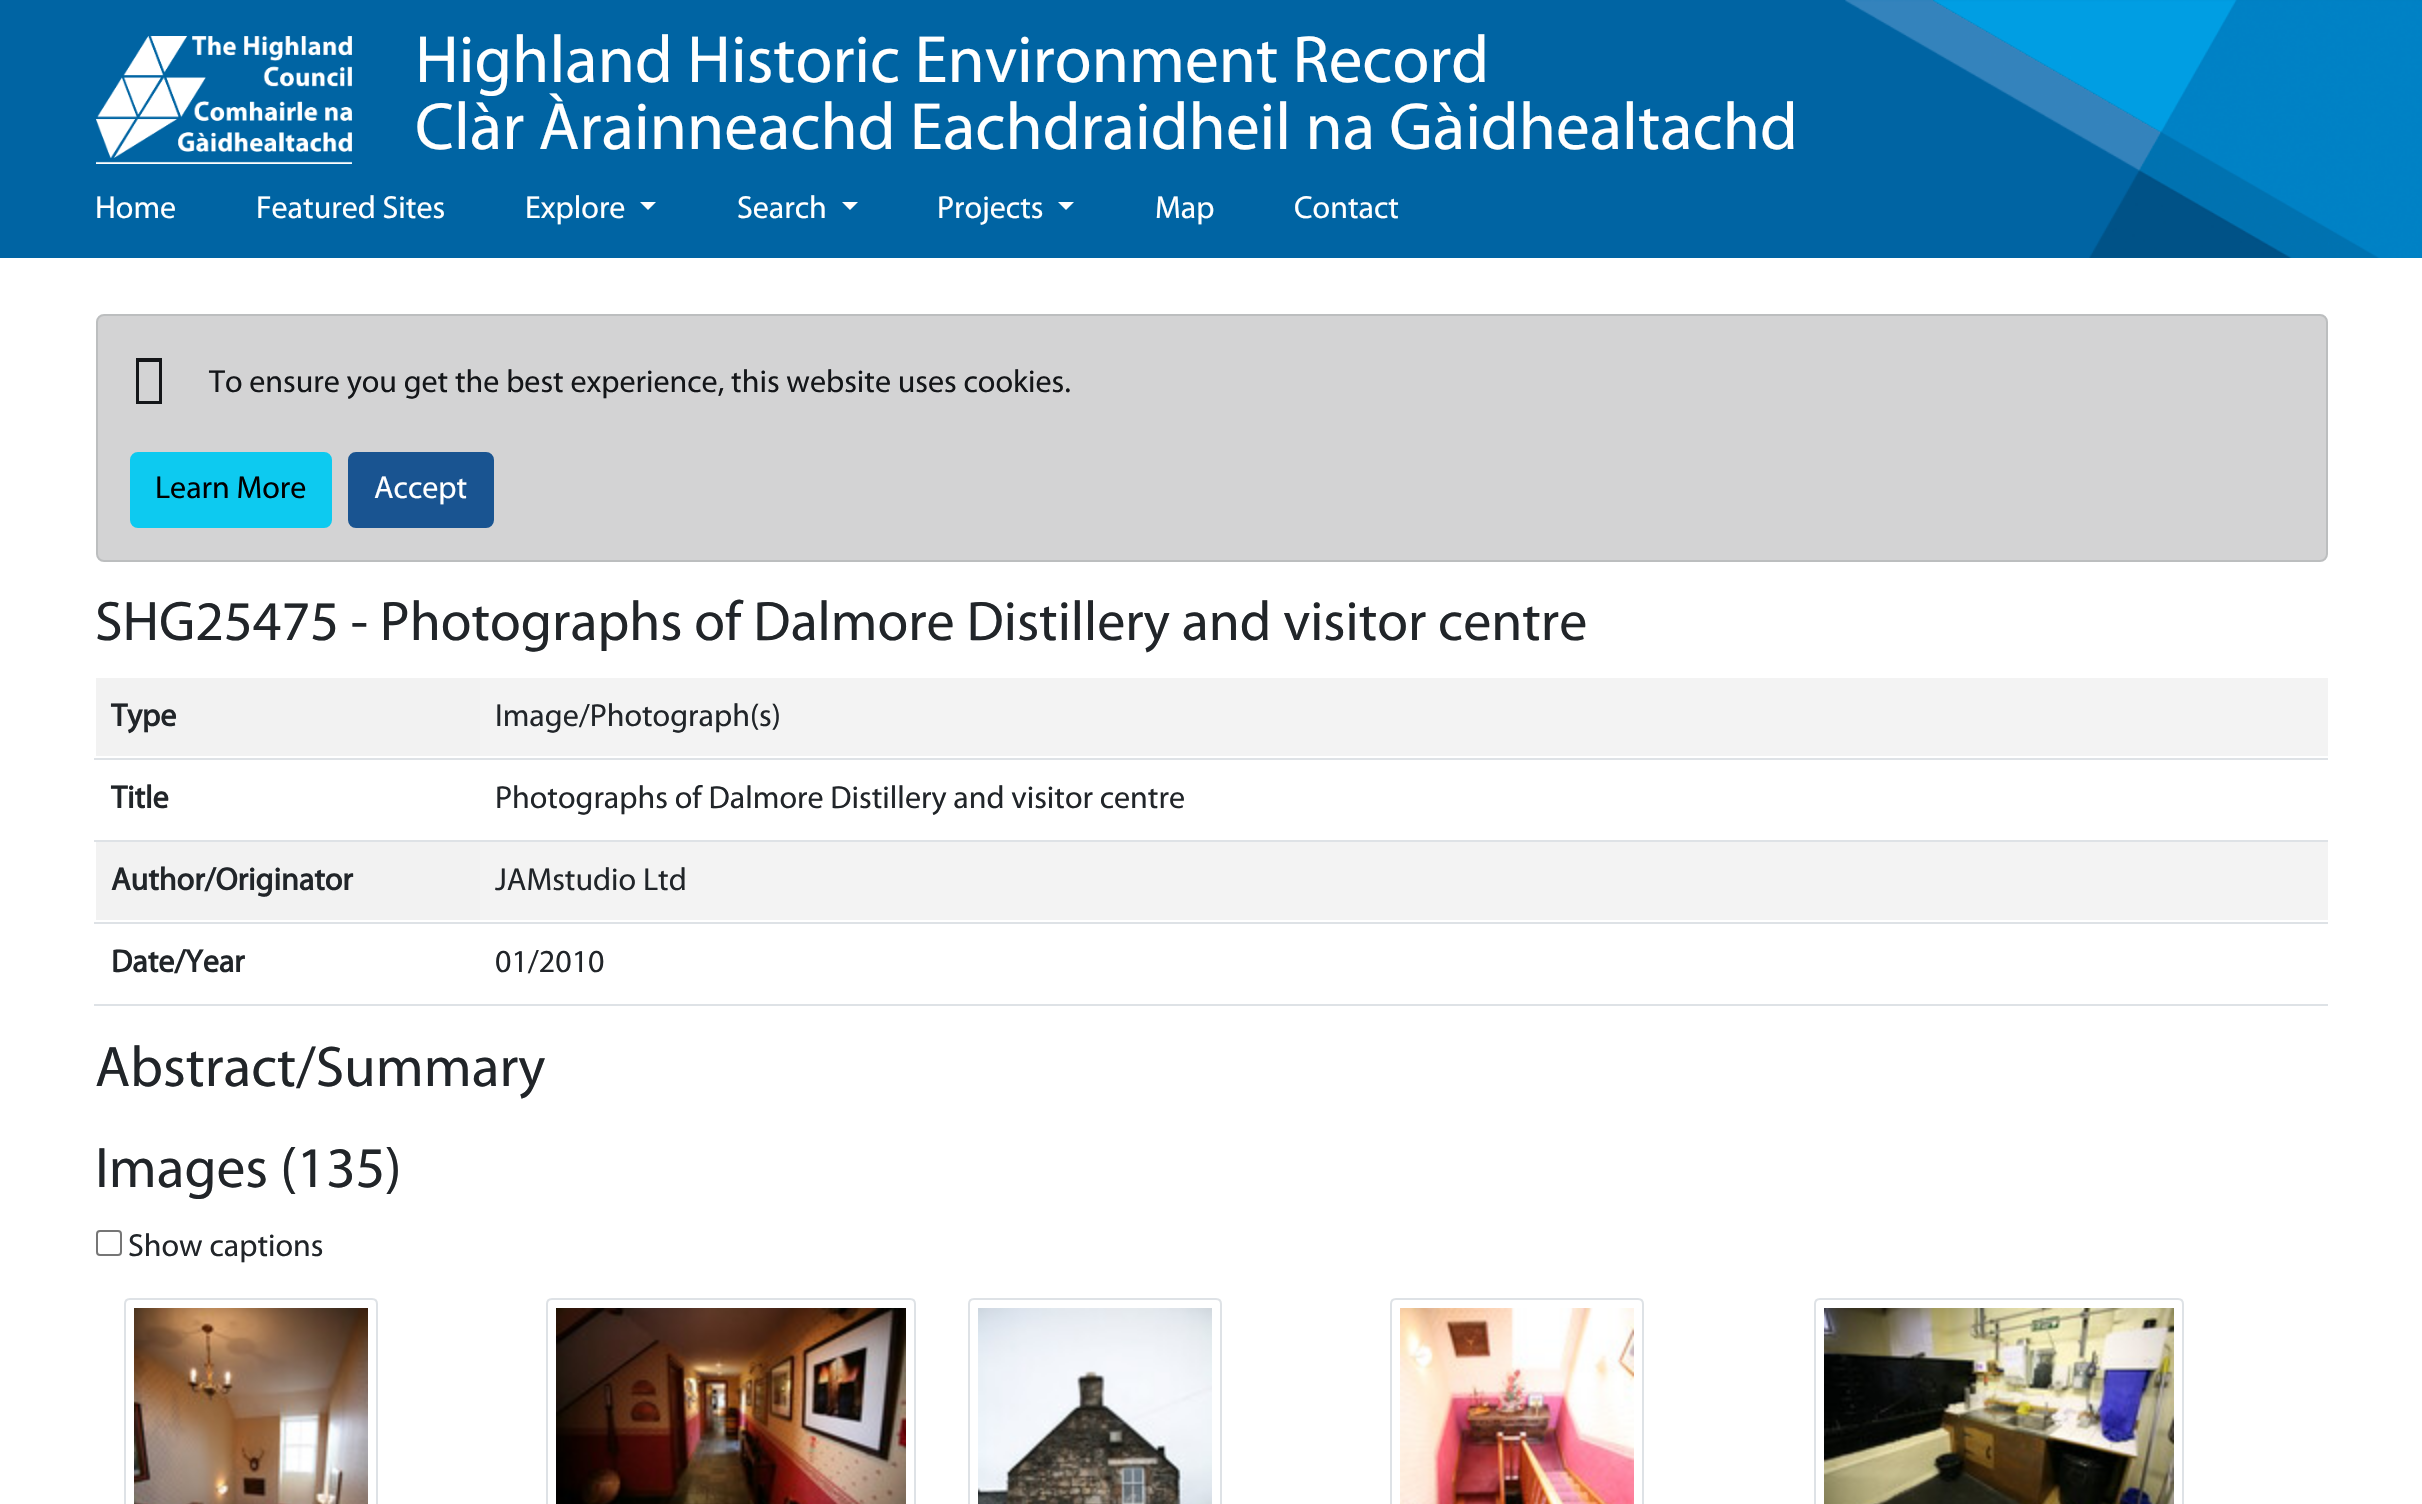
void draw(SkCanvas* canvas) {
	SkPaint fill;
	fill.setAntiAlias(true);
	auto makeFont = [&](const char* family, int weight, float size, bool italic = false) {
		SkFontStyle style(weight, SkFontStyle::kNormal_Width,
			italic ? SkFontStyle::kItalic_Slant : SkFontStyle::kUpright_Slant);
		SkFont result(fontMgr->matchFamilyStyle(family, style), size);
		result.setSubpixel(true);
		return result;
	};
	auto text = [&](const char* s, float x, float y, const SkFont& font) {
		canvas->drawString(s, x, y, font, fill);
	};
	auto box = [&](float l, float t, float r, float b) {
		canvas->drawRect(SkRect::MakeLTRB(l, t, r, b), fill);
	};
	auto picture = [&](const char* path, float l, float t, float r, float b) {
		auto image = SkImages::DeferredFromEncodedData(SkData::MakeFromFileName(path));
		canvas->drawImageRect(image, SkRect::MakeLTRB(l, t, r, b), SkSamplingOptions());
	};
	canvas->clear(0xFFFFFFFF);
	fill.setColor(0xFF0064A3);
	box(0, 0, 2422, 258);
	picture("image0.png", 1845, 0, 2422, 258);
	picture("image1.png", 96, 36, 352, 164);
	fill.setColor(0xFFFFFFFF);
	canvas->drawPath(SkPathBuilder().moveTo(640, 202).lineTo(656, 202).lineTo(648, 210).close().detach(), fill);
	canvas->drawPath(SkPathBuilder().moveTo(842, 202).lineTo(858, 202).lineTo(850, 210).close().detach(), fill);
	canvas->drawPath(SkPathBuilder().moveTo(1058, 202).lineTo(1074, 202).lineTo(1066, 210).close().detach(), fill);
	fill.setColor(0xFFD3D3D4);
	canvas->drawRoundRect(SkRect::MakeLTRB(97, 315, 2327, 561), 7, 7, fill);
	fill.setStyle(SkPaint::kStroke_Style);
	fill.setStrokeWidth(2);
	fill.setColor(0xFFBCBEBF);
	canvas->drawRoundRect(SkRect::MakeLTRB(97, 315, 2327, 561), 7, 7, fill);
	fill.setStyle(SkPaint::kFill_Style);
	fill.setColor(0xFF141619);
	canvas->drawPath(SkPathBuilder().moveTo(136, 404).lineTo(136, 358).lineTo(162, 358).lineTo(162, 404).close().moveTo(139, 401).lineTo(159, 401).lineTo(159, 362).lineTo(139, 362).close().detach(), fill);
	fill.setColor(0xFF0DCAF0);
	canvas->drawRoundRect(SkRect::MakeLTRB(131, 453, 331, 527), 7, 7, fill);
	fill.setStyle(SkPaint::kStroke_Style);
	canvas->drawRoundRect(SkRect::MakeLTRB(131, 453, 331, 527), 7, 7, fill);
	fill.setStyle(SkPaint::kFill_Style);
	fill.setColor(0xFF195491);
	canvas->drawRoundRect(SkRect::MakeLTRB(349, 453, 493, 527), 7, 7, fill);
	fill.setStyle(SkPaint::kStroke_Style);
	canvas->drawRoundRect(SkRect::MakeLTRB(349, 453, 493, 527), 7, 7, fill);
	fill.setStyle(SkPaint::kFill_Style);
	fill.setColor(0xFFF2F2F2);
	box(96, 678, 480, 756);
	fill.setColor(0xFFF3F3F3);
	box(480, 678, 2328, 756);
	fill.setColor(0xFFDEE2E6);
	box(94, 758, 2328, 760);
	box(94, 840, 2328, 842);
	fill.setColor(0xFFF2F2F2);
	box(96, 842, 480, 920);
	fill.setColor(0xFFF3F3F3);
	box(480, 842, 2328, 920);
	fill.setColor(0xFFDEE2E6);
	box(94, 922, 2328, 924);
	box(94, 1004, 2328, 1006);
	fill.setStyle(SkPaint::kStroke_Style);
	fill.setColor(0xFF767676);
	canvas->drawRoundRect(SkRect::MakeLTRB(97, 1231, 121, 1255), 3, 3, fill);
	fill.setColor(0xFFDEE2E6);
	canvas->drawPath(SkPathBuilder().moveTo(130, 1299).lineTo(372, 1299).cubicTo(375, 1299, 377, 1301, 377, 1304).lineTo(377, 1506).cubicTo(377, 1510, 374, 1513, 370, 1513).lineTo(132, 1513).cubicTo(128, 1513, 125, 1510, 125, 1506).lineTo(125, 1304).cubicTo(125, 1301, 127, 1299, 130, 1299).close().detach(), fill);
	picture("image2.png", 134, 1308, 368, 1504);
	canvas->drawPath(SkPathBuilder().moveTo(552, 1299).lineTo(910, 1299).cubicTo(913, 1299, 915, 1301, 915, 1304).lineTo(915, 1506).cubicTo(915, 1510, 912, 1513, 908, 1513).lineTo(554, 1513).cubicTo(550, 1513, 547, 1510, 547, 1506).lineTo(547, 1304).cubicTo(547, 1301, 549, 1299, 552, 1299).close().detach(), fill);
	picture("image3.png", 556, 1308, 906, 1504);
	canvas->drawPath(SkPathBuilder().moveTo(974, 1299).lineTo(1216, 1299).cubicTo(1219, 1299, 1221, 1301, 1221, 1304).lineTo(1221, 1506).cubicTo(1221, 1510, 1218, 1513, 1214, 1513).lineTo(976, 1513).cubicTo(972, 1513, 969, 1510, 969, 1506).lineTo(969, 1304).cubicTo(969, 1301, 971, 1299, 974, 1299).close().detach(), fill);
	picture("image4.png", 978, 1308, 1212, 1504);
	canvas->drawPath(SkPathBuilder().moveTo(1396, 1299).lineTo(1638, 1299).cubicTo(1641, 1299, 1643, 1301, 1643, 1304).lineTo(1643, 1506).cubicTo(1643, 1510, 1640, 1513, 1636, 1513).lineTo(1398, 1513).cubicTo(1394, 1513, 1391, 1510, 1391, 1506).lineTo(1391, 1304).cubicTo(1391, 1301, 1393, 1299, 1396, 1299).close().detach(), fill);
	picture("image5.png", 1400, 1308, 1634, 1504);
	canvas->drawPath(SkPathBuilder().moveTo(1820, 1299).lineTo(2178, 1299).cubicTo(2181, 1299, 2183, 1301, 2183, 1304).lineTo(2183, 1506).cubicTo(2183, 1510, 2180, 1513, 2176, 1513).lineTo(1822, 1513).cubicTo(1818, 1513, 1815, 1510, 1815, 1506).lineTo(1815, 1304).cubicTo(1815, 1301, 1817, 1299, 1820, 1299).close().detach(), fill);
	picture("image6.png", 1824, 1308, 2174, 1504);
	auto font1 = makeFont("Myriad", 400, 67.2f);
	fill.setStyle(SkPaint::kFill_Style);
	fill.setColor(0xFFFFFFFF);
	text("Highland Historic Environment Record", 415, 82, font1);
	text("Clàr Àrainneachd Eachdraidheil na Gàidhealtachd", 415, 149, font1);
	auto font2 = makeFont("Myriad", 400, 32);
	text("Home", 95, 218, font2);
	text("Featured Sites", 256, 218, font2);
	text("Explore", 525, 218, font2);
	text("Search", 737, 218, font2);
	text("Projects", 937, 218, font2);
	text("Map", 1155, 218, font2);
	text("Contact", 1294, 218, font2);
	fill.setColor(0xFF141619);
	text("To ensure you get the best experience, this website uses cookies.", 209, 392, font2);
	fill.setColor(0xFF000000);
	text("Learn More", 155, 498, font2);
	fill.setColor(0xFFFFFFFF);
	text("Accept", 374, 498, font2);
	auto font3 = makeFont("Myriad", 400, 56);
	fill.setColor(0xFF212529);
	text("SHG25475 - Photographs of Dalmore Distillery and visitor centre", 95, 640, font3);
	auto font4 = makeFont("Myriad", 700, 32);
	text("Type", 111, 726, font4);
	text("Image/Photograph(s)", 495, 726, font2);
	text("Title", 111, 808, font4);
	text("Photographs of Dalmore Distillery and visitor centre", 495, 808, font2);
	text("Author/Originator", 111, 890, font4);
	text("JAMstudio Ltd", 495, 890, font2);
	text("Date/Year", 111, 972, font4);
	text("01/2010", 495, 972, font2);
	auto font5 = makeFont("Myriad", 400, 57.5f);
	text("Abstract/Summary", 95, 1086, font5);
	text("Images (135)", 95, 1187, font5);
	text("Show captions", 128, 1256, font2);
}
